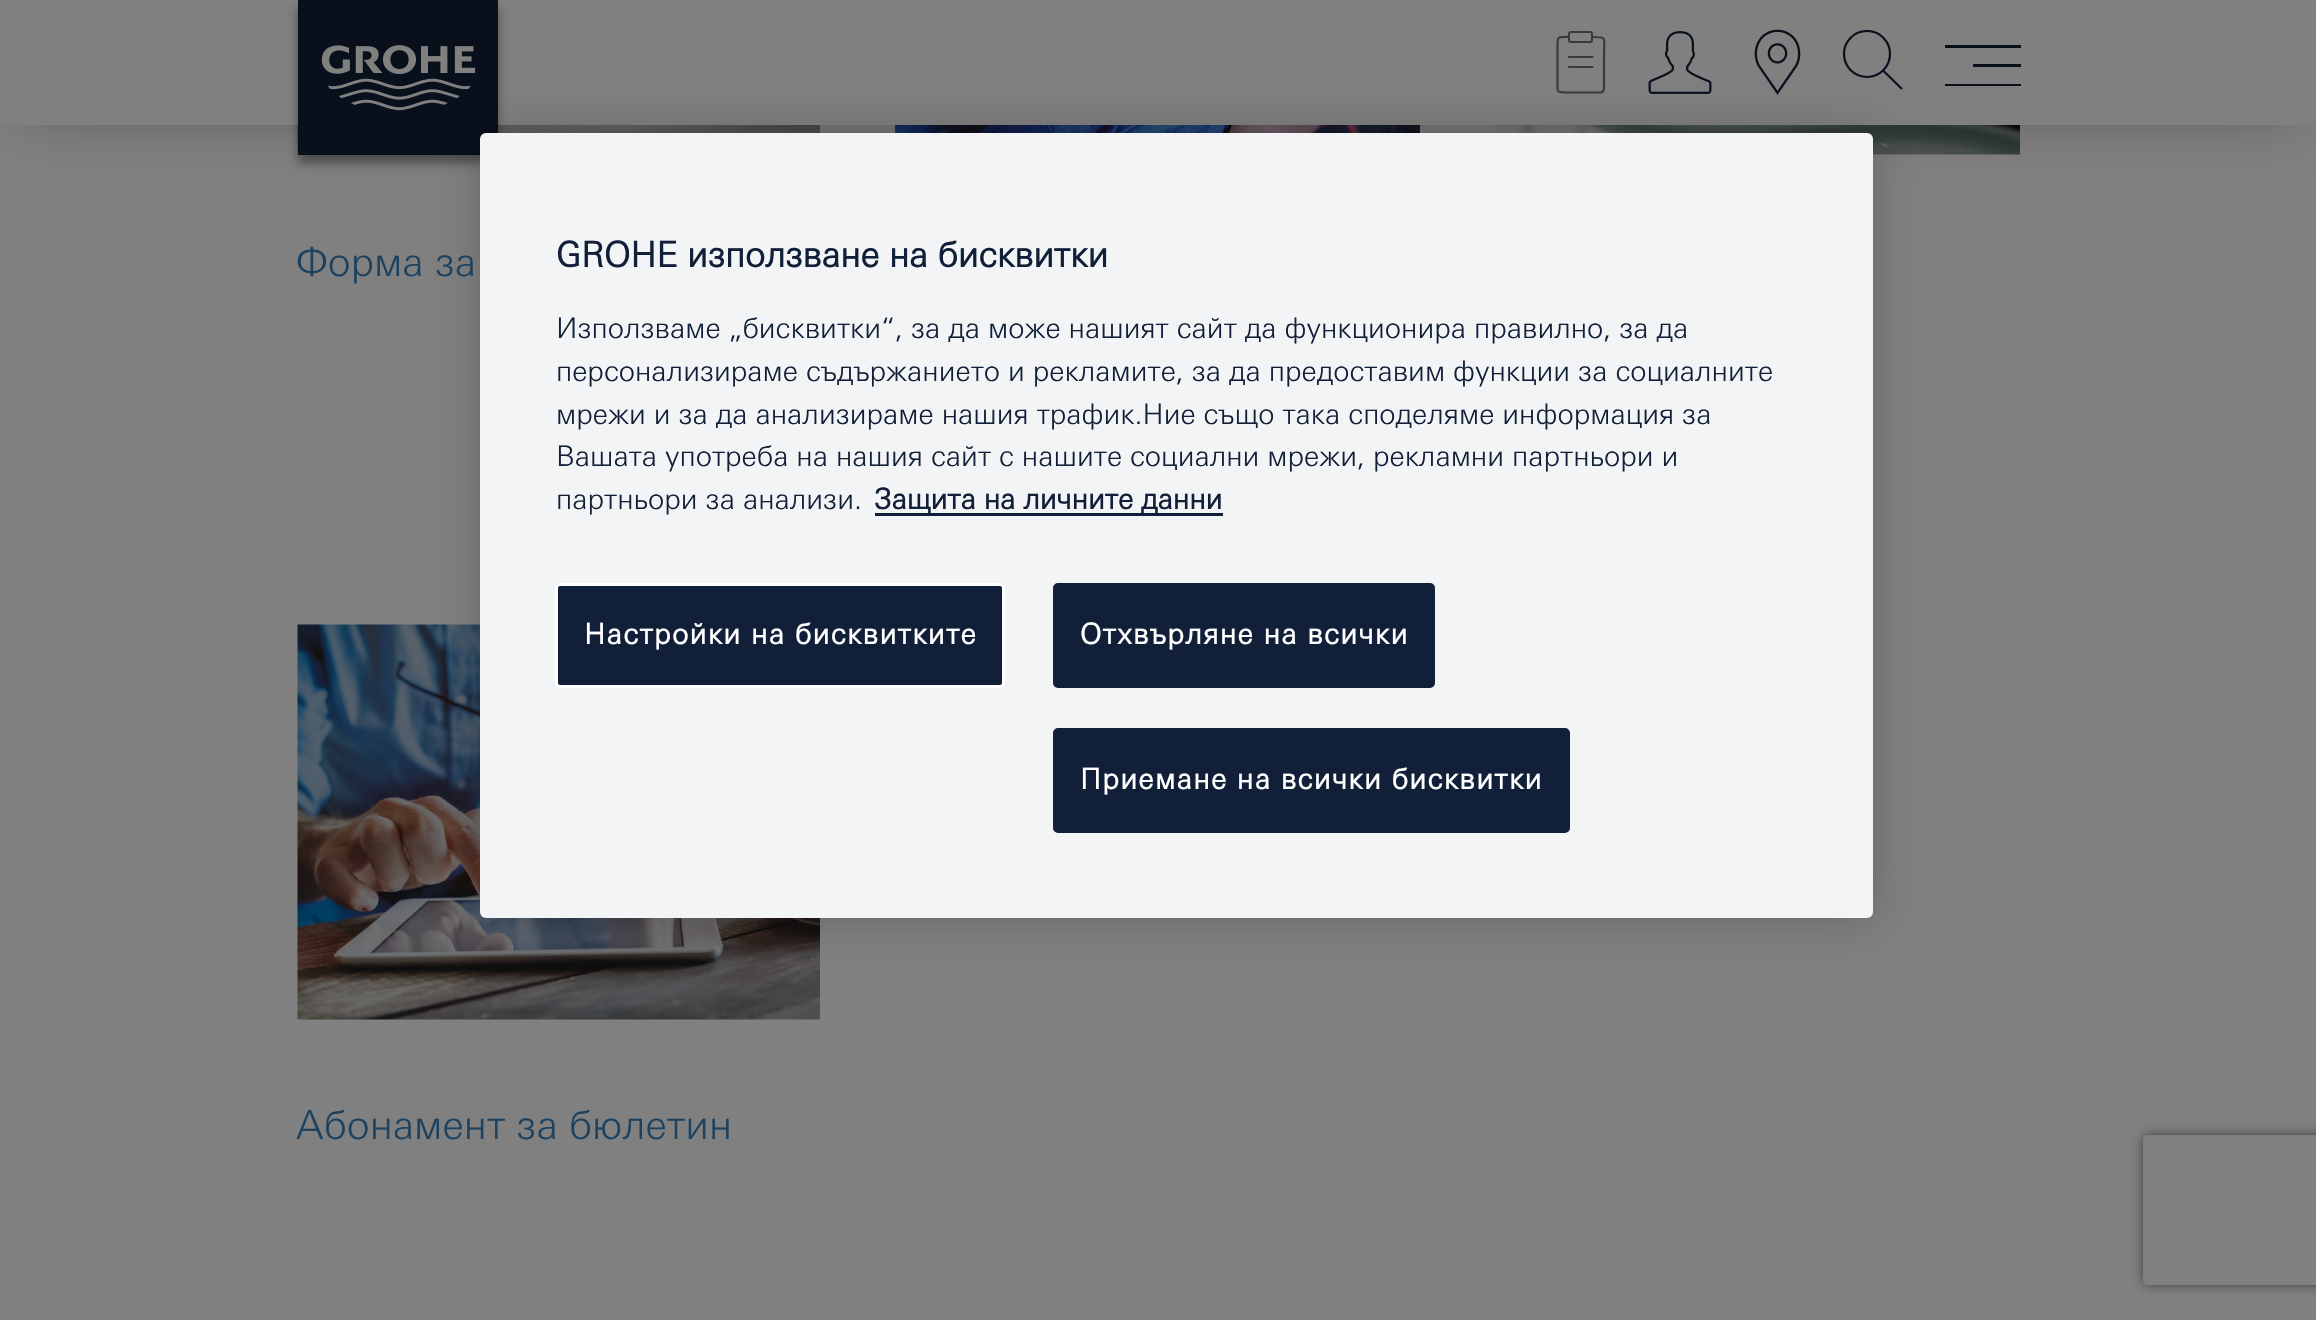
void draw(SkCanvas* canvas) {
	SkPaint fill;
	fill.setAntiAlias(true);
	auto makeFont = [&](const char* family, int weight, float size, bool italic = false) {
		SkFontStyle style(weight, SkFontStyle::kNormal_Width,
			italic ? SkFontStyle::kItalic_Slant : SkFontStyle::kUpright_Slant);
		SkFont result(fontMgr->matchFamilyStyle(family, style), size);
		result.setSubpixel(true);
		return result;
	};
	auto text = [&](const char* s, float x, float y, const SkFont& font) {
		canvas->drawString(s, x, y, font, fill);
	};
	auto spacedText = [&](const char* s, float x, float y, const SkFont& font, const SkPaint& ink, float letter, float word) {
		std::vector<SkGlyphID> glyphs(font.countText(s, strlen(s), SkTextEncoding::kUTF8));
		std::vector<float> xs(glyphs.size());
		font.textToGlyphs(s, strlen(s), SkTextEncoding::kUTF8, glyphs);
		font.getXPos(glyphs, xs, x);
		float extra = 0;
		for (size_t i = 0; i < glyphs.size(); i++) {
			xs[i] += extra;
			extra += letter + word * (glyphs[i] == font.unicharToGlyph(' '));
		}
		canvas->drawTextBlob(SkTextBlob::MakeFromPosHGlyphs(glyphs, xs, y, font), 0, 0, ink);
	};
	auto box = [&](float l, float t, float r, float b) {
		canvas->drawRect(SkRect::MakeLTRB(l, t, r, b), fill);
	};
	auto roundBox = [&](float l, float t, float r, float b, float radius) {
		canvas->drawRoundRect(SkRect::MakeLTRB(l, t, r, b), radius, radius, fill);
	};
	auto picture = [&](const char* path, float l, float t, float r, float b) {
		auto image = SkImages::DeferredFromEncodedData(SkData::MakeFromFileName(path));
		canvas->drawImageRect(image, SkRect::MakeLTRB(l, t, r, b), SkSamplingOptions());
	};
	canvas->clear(0xFF808080);
	picture("image3.png", 895, 125, 1420, 133);
	picture("image4.png", 1495, 125, 2020, 155);
	picture("image5.png", 297, 125, 820, 155);
	fill.setColor(0x66000000);
	fill.setMaskFilter(SkMaskFilter::MakeBlur(kNormal_SkBlurStyle, 30));
	canvas->drawRect(SkRect::MakeLTRB(25, 33, 2293, 108), fill);
	fill.setMaskFilter(nullptr);
	fill.setColor(0xFF808080);
	box(0, 0, 2316, 125);
	fill.setColor(0x66000000);
	fill.setMaskFilter(SkMaskFilter::MakeBlur(kNormal_SkBlurStyle, 5));
	canvas->drawRect(SkRect::MakeLTRB(298, 8, 498, 163), fill);
	fill.setMaskFilter(nullptr);
	fill.setColor(0xFF09101C);
	box(298, 0, 498, 155);
	picture("image0.png", 321, 45, 476, 111);
	fill.setStyle(SkPaint::kStroke_Style);
	fill.setStrokeWidth(2.2f);
	fill.setStrokeJoin(SkPaint::kRound_Join);
	fill.setColor(0xFF363B42);
	canvas->drawPath(SkPathBuilder().moveTo(1591.5f, 37).cubicTo(1608, 37, 1604, 36.5f, 1604, 56.5f).lineTo(1604, 89).cubicTo(1604, 90.5f, 1602.5f, 92.5f, 1600.5f, 92.5f).lineTo(1567.5f, 92.5f).cubicTo(1556, 92.5f, 1557.5f, 92.5f, 1557.5f, 81).lineTo(1557.5f, 48.5f).cubicTo(1557.5f, 35.5f, 1557, 37, 1569, 37).detach(), fill);
	fill.setStrokeCap(SkPaint::kRound_Cap);
	canvas->drawPath(SkPathBuilder().moveTo(1569, 57).lineTo(1592.5f, 57).moveTo(1569, 67).lineTo(1592.5f, 67).detach(), fill);
	fill.setStrokeWidth(2);
	fill.setStrokeCap(SkPaint::kButt_Cap);
	fill.setStrokeJoin(SkPaint::kMiter_Join);
	canvas->drawRoundRect(SkRect::MakeLTRB(1569, 32, 1592, 42), 2, 2, fill);
	picture("image1.png", 1648, 31, 1712, 94);
	picture("image2.png", 1754, 29, 1801, 95);
	fill.setStrokeWidth(2.2f);
	fill.setColor(0xFF09101C);
	canvas->drawPath(SkPathBuilder().moveTo(1902, 89).lineTo(1882.5f, 70).close().detach(), fill);
	canvas->save();
	canvas->clipRect(SkRect::MakeLTRB(1843, 30, 1903, 90));
	canvas->drawCircle(1867, 54, 23, fill);
	canvas->restore();
	fill.setStyle(SkPaint::kFill_Style);
	canvas->drawPath(SkPathBuilder().moveTo(1945, 45).lineTo(2021, 45).lineTo(2021, 48).lineTo(1945, 48).close().moveTo(1973, 64).lineTo(2021, 64).lineTo(2021, 67).lineTo(1973, 67).close().moveTo(1945, 84).lineTo(2021, 84).lineTo(2021, 86).lineTo(1945, 86).close().detach(), fill);
	picture("image6.png", 297, 624, 820, 1020);
	fill.setColor(0x33000000);
	fill.setMaskFilter(SkMaskFilter::MakeBlur(kNormal_SkBlurStyle, 22.5f));
	canvas->drawRoundRect(SkRect::MakeLTRB(480, 133, 1873, 918), 6, 6, fill);
	fill.setMaskFilter(nullptr);
	fill.setColor(0xFFF2F4F6);
	roundBox(480, 133, 1873, 918, 6);
	fill.setColor(0xFF112038);
	box(875, 513, 1223, 516);
	canvas->drawRoundRect(SkRect::MakeLTRB(556.5f, 584.5f, 1003.5f, 686.5f), 3.5f, 3.5f, fill);
	fill.setStyle(SkPaint::kStroke_Style);
	fill.setStrokeWidth(3);
	fill.setColor(0xFFFFFFFF);
	canvas->drawRoundRect(SkRect::MakeLTRB(556.5f, 584.5f, 1003.5f, 686.5f), 3.5f, 3.5f, fill);
	fill.setStyle(SkPaint::kFill_Style);
	fill.setColor(0xFF112038);
	canvas->drawRoundRect(SkRect::MakeLTRB(1054.5f, 584.5f, 1433.5f, 686.5f), 3.5f, 3.5f, fill);
	fill.setStyle(SkPaint::kStroke_Style);
	canvas->drawRoundRect(SkRect::MakeLTRB(1054.5f, 584.5f, 1433.5f, 686.5f), 3.5f, 3.5f, fill);
	fill.setStyle(SkPaint::kFill_Style);
	canvas->drawRoundRect(SkRect::MakeLTRB(1054.5f, 729.5f, 1568.5f, 831.5f), 3.5f, 3.5f, fill);
	fill.setStyle(SkPaint::kStroke_Style);
	canvas->drawRoundRect(SkRect::MakeLTRB(1054.5f, 729.5f, 1568.5f, 831.5f), 3.5f, 3.5f, fill);
	canvas->save();
	canvas->clipPath(SkPathBuilder(SkPathFillType::kEvenOdd).moveTo(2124, 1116).lineTo(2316, 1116).lineTo(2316, 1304).lineTo(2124, 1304).close().moveTo(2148, 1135).lineTo(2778, 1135).cubicTo(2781, 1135, 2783, 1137, 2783, 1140).lineTo(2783, 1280).cubicTo(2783, 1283, 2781, 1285, 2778, 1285).lineTo(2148, 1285).cubicTo(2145, 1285, 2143, 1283, 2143, 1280).lineTo(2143, 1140).cubicTo(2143, 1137, 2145, 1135, 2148, 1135).close().detach(), true);
	fill.setStyle(SkPaint::kFill_Style);
	fill.setColor(0xFF404040);
	fill.setMaskFilter(SkMaskFilter::MakeBlur(kNormal_SkBlurStyle, 6));
	canvas->drawRoundRect(SkRect::MakeLTRB(2143, 1135, 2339, 1285), 5, 5, fill);
	fill.setMaskFilter(nullptr);
	canvas->restore();
	auto font1 = makeFont("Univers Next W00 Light", 300, 40);
	fill.setColor(0xFF1D425F);
	text("Форма за", 296, 276, font1);
	text("Абонамент за бюлетин", 296, 1139, font1);
	auto font2 = makeFont("Univers Next W00 Light", 700, 35);
	fill.setColor(0xFF112038);
	text("GROHE използване на бисквитки", 556, 267, font2);
	auto font3 = makeFont("Univers Next W00 Light", 300, 28.45f);
	text("Използваме „бисквитки“, за да може нашият сайт да функционира правилно, за да", 556, 338, font3);
	text("персонализираме съдържанието и рекламите, за да предоставим функции за социалните", 556, 381, font3);
	text("мрежи и за да анализираме нашия трафик.Ние също така споделяме информация за", 556, 424, font3);
	text("Вашата употреба на нашия сайт с нашите социални мрежи, рекламни партньори и", 556, 466, font3);
	text("партньори за анализи.", 556, 509, font3);
	auto font4 = makeFont("Univers Next W00 Light", 700, 28.45f);
	text("Защита на личните данни", 874, 509, font4);
	fill.setColor(0xFFFFFFFF);
	spacedText("Настройки на бисквитките", 584, 644, font4, fill, 1.4f, 0);
	spacedText("Отхвърляне на всички", 1080, 644, font4, fill, 1.4f, 0);
	spacedText("Приемане на всички бисквитки", 1080, 789, font4, fill, 1.4f, 0);
}
